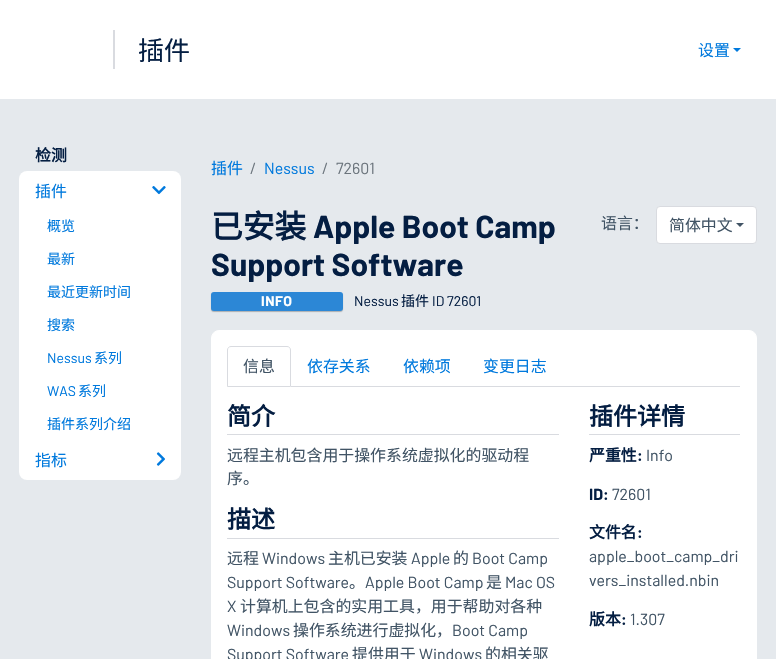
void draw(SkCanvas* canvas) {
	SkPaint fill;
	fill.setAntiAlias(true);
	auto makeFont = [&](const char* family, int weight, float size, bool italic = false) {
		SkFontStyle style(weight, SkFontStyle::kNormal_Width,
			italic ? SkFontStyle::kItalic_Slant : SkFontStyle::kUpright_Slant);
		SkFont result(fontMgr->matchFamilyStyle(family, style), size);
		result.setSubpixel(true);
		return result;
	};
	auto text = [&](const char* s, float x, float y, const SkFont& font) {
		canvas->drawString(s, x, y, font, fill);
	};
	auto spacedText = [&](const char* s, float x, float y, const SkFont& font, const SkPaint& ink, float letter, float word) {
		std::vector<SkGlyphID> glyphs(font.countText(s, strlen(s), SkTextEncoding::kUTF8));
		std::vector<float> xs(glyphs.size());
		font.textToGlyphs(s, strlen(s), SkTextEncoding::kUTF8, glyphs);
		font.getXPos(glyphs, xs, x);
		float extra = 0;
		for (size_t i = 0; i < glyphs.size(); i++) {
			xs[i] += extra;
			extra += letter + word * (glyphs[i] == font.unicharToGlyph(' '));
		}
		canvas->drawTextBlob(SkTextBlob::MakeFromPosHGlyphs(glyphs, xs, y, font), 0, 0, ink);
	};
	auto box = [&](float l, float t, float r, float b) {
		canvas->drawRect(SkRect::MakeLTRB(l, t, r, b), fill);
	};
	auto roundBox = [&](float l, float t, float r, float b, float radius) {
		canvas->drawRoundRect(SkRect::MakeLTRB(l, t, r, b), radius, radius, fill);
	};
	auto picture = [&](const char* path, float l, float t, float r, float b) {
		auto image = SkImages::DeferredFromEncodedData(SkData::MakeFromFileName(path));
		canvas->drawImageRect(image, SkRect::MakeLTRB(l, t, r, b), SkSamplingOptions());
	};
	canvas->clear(0xFFFFFFFF);
	fill.setColor(0xFFD9DBE0);
	box(113, 30, 115, 69);
	fill.setColor(0xFF0079DD);
	canvas->drawPath(SkPathBuilder().moveTo(733, 48).lineTo(741, 48).lineTo(737, 52).close().detach(), fill);
	fill.setColor(0xFFE5E9ED);
	box(0, 99, 776, 659);
	fill.setColor(0xFFFFFFFF);
	roundBox(19, 171, 181, 480, 8);
	picture("image0.png", 152, 186, 166, 195);
	picture("image1.png", 156, 452, 165, 466);
	fill.setColor(0x40000000);
	fill.setMaskFilter(SkMaskFilter::MakeBlur(kNormal_SkBlurStyle, 0.5f));
	canvas->drawRoundRect(SkRect::MakeLTRB(211, 293, 343, 312), 3, 3, fill);
	fill.setMaskFilter(nullptr);
	fill.setColor(0xFF2C87D6);
	roundBox(211, 292, 343, 311, 3);
	fill.setColor(0xFFFFFFFF);
	canvas->drawRoundRect(SkRect::MakeLTRB(656.5f, 206.5f, 756.5f, 243.5f), 3.5f, 3.5f, fill);
	fill.setStyle(SkPaint::kStroke_Style);
	fill.setStrokeWidth(1);
	fill.setColor(0xFFD9DBE0);
	canvas->drawRoundRect(SkRect::MakeLTRB(656.5f, 206.5f, 756.5f, 243.5f), 3.5f, 3.5f, fill);
	fill.setStyle(SkPaint::kFill_Style);
	fill.setColor(0xFF415465);
	canvas->drawPath(SkPathBuilder().moveTo(736, 223).lineTo(744, 223).lineTo(740, 227).close().detach(), fill);
	fill.setColor(0xFFFFFFFF);
	canvas->drawRoundRect(SkRect::MakeLTRB(211.5f, 330.5f, 756.5f, 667.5f), 7.5f, 7.5f, fill);
	fill.setStyle(SkPaint::kStroke_Style);
	canvas->drawRoundRect(SkRect::MakeLTRB(211.5f, 330.5f, 756.5f, 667.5f), 7.5f, 7.5f, fill);
	fill.setStyle(SkPaint::kFill_Style);
	fill.setColor(0xFFD9DBE0);
	box(291, 386, 740, 387);
	fill.setStyle(SkPaint::kStroke_Style);
	canvas->drawPath(SkPathBuilder().moveTo(231, 346.5f).lineTo(287, 346.5f).cubicTo(289, 346.5f, 290.5f, 348, 290.5f, 350).lineTo(290.5f, 386.5f).lineTo(227.5f, 386.5f).lineTo(227.5f, 350).cubicTo(227.5f, 348, 229, 346.5f, 231, 346.5f).close().detach(), fill);
	fill.setStyle(SkPaint::kFill_Style);
	box(227, 434, 559, 435);
	box(227, 538, 559, 539);
	box(589, 434, 740, 435);
	auto font1 = makeFont("Noto Sans CJK SC", 400, 26);
	fill.setColor(0xFF041E42);
	text("插件", 138, 60, font1);
	auto font2 = makeFont("Noto Sans CJK SC", 400, 15.9f);
	fill.setColor(0xFF0079DD);
	text("设置", 698, 56, font2);
	auto font3 = makeFont("Noto Sans CJK SC", 700, 15.9f);
	fill.setColor(0xFF041E42);
	text("检测", 35, 161, font3);
	fill.setColor(0xFF0079DD);
	text("插件", 35, 197, font2);
	auto font4 = makeFont("Noto Sans CJK SC", 400, 14);
	text("概览", 47, 231, font4);
	text("最新", 47, 264, font4);
	text("最近更新时间", 47, 297, font4);
	text("搜索", 47, 330, font4);
	auto font5 = makeFont("Barlow", 400, 14);
	text("Nessus", 47, 363, font5);
	text("系列", 94, 363, font4);
	text("WAS", 47, 396, font5);
	text("系列", 78, 396, font4);
	text("插件系列介绍", 47, 429, font4);
	text("指标", 35, 466, font2);
	text("插件", 211, 174, font2);
	auto font6 = makeFont("Barlow", 400, 15.9f);
	fill.setColor(0xFF6C757D);
	text("/", 250, 174, font6);
	fill.setColor(0xFF0079DD);
	text("Nessus", 264, 174, font6);
	fill.setColor(0xFF6C757D);
	text("/", 322, 174, font6);
	text("72601", 336, 174, font6);
	auto font7 = makeFont("Noto Sans CJK SC", 700, 31.75f);
	fill.setColor(0xFF041E42);
	text("已安装", 211, 238, font7);
	auto font8 = makeFont("Barlow", 700, 31.75f);
	text("Apple Boot Camp", 313, 238, font8);
	text("Support Software", 211, 276, font8);
	auto font9 = makeFont("Barlow", 700, 14);
	fill.setColor(0xFFFFFFFF);
	spacedText("INFO", 261, 306, font9, fill, 0.5f, 0);
	fill.setColor(0xFF041E42);
	text("Nessus", 354, 306, font5);
	text("插件", 401, 306, font4);
	text("ID 72601", 432, 306, font5);
	fill.setColor(0xFF415465);
	text("语言：", 601, 229, font2);
	text("简体中文", 669, 231, font2);
	text("信息", 243, 372, font2);
	fill.setColor(0xFF0079DD);
	text("依存关系", 307, 372, font2);
	text("依赖项", 403, 372, font2);
	text("变更日志", 483, 372, font2);
	auto font10 = makeFont("Noto Sans CJK SC", 700, 24);
	fill.setColor(0xFF041E42);
	text("简介", 227, 425, font10);
	fill.setColor(0xFF415465);
	text("远程主机包含用于操作系统虚拟化的驱动程", 227, 461, font2);
	text("序。", 227, 484, font2);
	fill.setColor(0xFF041E42);
	text("描述", 227, 528, font10);
	fill.setColor(0xFF415465);
	text("远程", 227, 564, font2);
	text("Windows", 262, 564, font6);
	text("主机已安装", 328, 564, font2);
	text("Apple", 411, 564, font6);
	text("的", 453, 564, font2);
	text("Boot Camp", 472, 564, font6);
	text("Support Software", 227, 588, font6);
	text("。", 349, 588, font2);
	text("Apple Boot Camp", 365, 588, font6);
	text("是", 486, 588, font2);
	text("Mac OS", 505, 588, font6);
	text("X", 227, 612, font6);
	text("计算机上包含的实用工具，用于帮助对各种", 240, 612, font2);
	text("Windows", 227, 636, font6);
	text("操作系统进行虚拟化，", 293, 636, font2);
	text("Boot Camp", 452, 636, font6);
	text("Support Software", 227, 660, font6);
	text("提供用于", 352, 660, font2);
	text("Windows", 419, 660, font6);
	text("的相关驱", 485, 660, font2);
	fill.setColor(0xFF041E42);
	text("插件详情", 589, 425, font10);
	text("严重性", 589, 461, font3);
	auto font11 = makeFont("Barlow", 700, 15.9f);
	text(":", 637, 461, font11);
	fill.setColor(0xFF415465);
	text("Info", 646, 461, font6);
	fill.setColor(0xFF041E42);
	text("ID:", 589, 500, font11);
	fill.setColor(0xFF415465);
	text("72601", 612, 500, font6);
	fill.setColor(0xFF041E42);
	text("文件名", 589, 538, font3);
	text(":", 637, 538, font11);
	fill.setColor(0xFF415465);
	text("apple_boot_camp_dri", 589, 562, font6);
	text("vers_installed.nbin", 589, 586, font6);
	fill.setColor(0xFF041E42);
	text("版本", 589, 625, font3);
	text(":", 621, 625, font11);
	fill.setColor(0xFF415465);
	text("1.307", 630, 625, font6);
}
